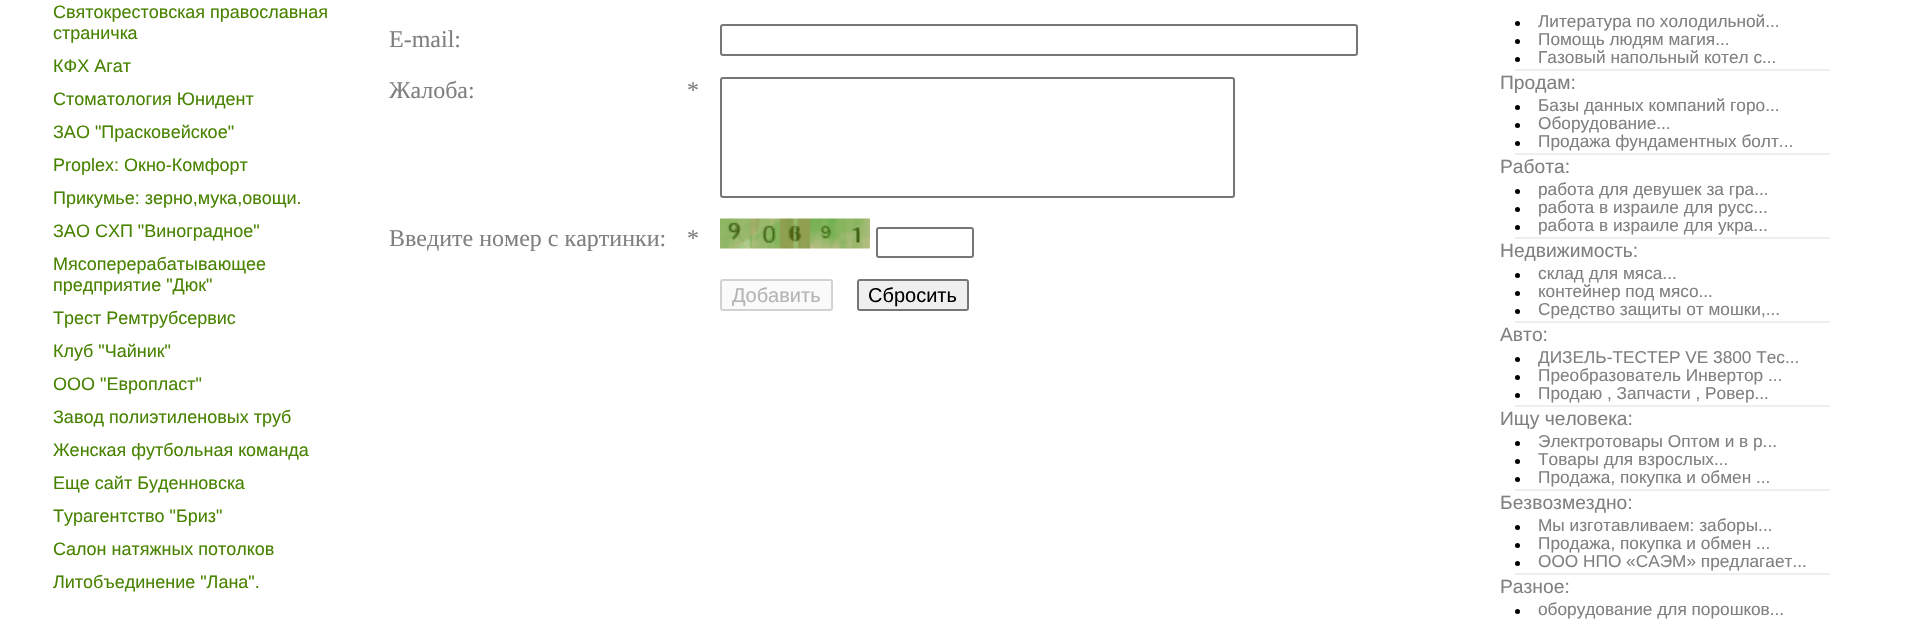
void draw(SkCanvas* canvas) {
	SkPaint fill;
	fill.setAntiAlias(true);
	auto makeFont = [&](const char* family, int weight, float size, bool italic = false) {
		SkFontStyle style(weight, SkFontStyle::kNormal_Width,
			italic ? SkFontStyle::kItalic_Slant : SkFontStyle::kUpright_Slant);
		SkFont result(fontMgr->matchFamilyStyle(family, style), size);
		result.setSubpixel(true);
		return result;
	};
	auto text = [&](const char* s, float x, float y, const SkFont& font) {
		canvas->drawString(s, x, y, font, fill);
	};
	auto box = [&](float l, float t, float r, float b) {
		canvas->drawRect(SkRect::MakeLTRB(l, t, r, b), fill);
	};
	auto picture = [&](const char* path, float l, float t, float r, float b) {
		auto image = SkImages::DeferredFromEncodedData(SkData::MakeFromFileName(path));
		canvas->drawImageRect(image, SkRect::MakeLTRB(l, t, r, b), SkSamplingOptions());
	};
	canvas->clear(0xFFFFFFFF);
	fill.setStyle(SkPaint::kStroke_Style);
	fill.setStrokeWidth(2);
	fill.setColor(0xFF767676);
	canvas->drawRoundRect(SkRect::MakeLTRB(721, 25, 1357, 55), 2, 2, fill);
	canvas->drawRoundRect(SkRect::MakeLTRB(721, 78, 1234, 197), 2, 2, fill);
	picture("image0.png", 720, 218, 870, 249);
	canvas->drawRoundRect(SkRect::MakeLTRB(877, 228, 973, 257), 2, 2, fill);
	fill.setStyle(SkPaint::kFill_Style);
	fill.setColor(0xFFFAFAFA);
	canvas->drawRoundRect(SkRect::MakeLTRB(721, 280, 832, 310), 2, 2, fill);
	fill.setStyle(SkPaint::kStroke_Style);
	fill.setColor(0xFFD2D2D2);
	canvas->drawRoundRect(SkRect::MakeLTRB(721, 280, 832, 310), 2, 2, fill);
	fill.setStyle(SkPaint::kFill_Style);
	fill.setColor(0xFFEFEFEF);
	canvas->drawRoundRect(SkRect::MakeLTRB(858, 280, 968, 310), 2, 2, fill);
	fill.setStyle(SkPaint::kStroke_Style);
	fill.setColor(0xFF767676);
	canvas->drawRoundRect(SkRect::MakeLTRB(858, 280, 968, 310), 2, 2, fill);
	fill.setStyle(SkPaint::kFill_Style);
	fill.setColor(0xFF000000);
	canvas->drawCircle(1517.5f, 23.5f, 2.5f, fill);
	canvas->drawCircle(1517.5f, 41.5f, 2.5f, fill);
	canvas->drawCircle(1517.5f, 59.5f, 2.5f, fill);
	fill.setColor(0xFFEFEFEF);
	box(1515, 69, 1830, 71);
	fill.setColor(0xFF000000);
	canvas->drawCircle(1517.5f, 107.5f, 2.5f, fill);
	canvas->drawCircle(1517.5f, 125.5f, 2.5f, fill);
	canvas->drawCircle(1517.5f, 143.5f, 2.5f, fill);
	fill.setColor(0xFFEFEFEF);
	box(1515, 153, 1830, 155);
	fill.setColor(0xFF000000);
	canvas->drawCircle(1517.5f, 191.5f, 2.5f, fill);
	canvas->drawCircle(1517.5f, 209.5f, 2.5f, fill);
	canvas->drawCircle(1517.5f, 227.5f, 2.5f, fill);
	fill.setColor(0xFFEFEFEF);
	box(1515, 237, 1830, 239);
	fill.setColor(0xFF000000);
	canvas->drawCircle(1517.5f, 275.5f, 2.5f, fill);
	canvas->drawCircle(1517.5f, 293.5f, 2.5f, fill);
	canvas->drawCircle(1517.5f, 311.5f, 2.5f, fill);
	fill.setColor(0xFFEFEFEF);
	box(1515, 321, 1830, 323);
	fill.setColor(0xFF000000);
	canvas->drawCircle(1517.5f, 359.5f, 2.5f, fill);
	canvas->drawCircle(1517.5f, 377.5f, 2.5f, fill);
	canvas->drawCircle(1517.5f, 395.5f, 2.5f, fill);
	fill.setColor(0xFFEFEFEF);
	box(1515, 405, 1830, 407);
	fill.setColor(0xFF000000);
	canvas->drawCircle(1517.5f, 443.5f, 2.5f, fill);
	canvas->drawCircle(1517.5f, 461.5f, 2.5f, fill);
	canvas->drawCircle(1517.5f, 479.5f, 2.5f, fill);
	fill.setColor(0xFFEFEFEF);
	box(1515, 489, 1830, 491);
	fill.setColor(0xFF000000);
	canvas->drawCircle(1517.5f, 527.5f, 2.5f, fill);
	canvas->drawCircle(1517.5f, 545.5f, 2.5f, fill);
	canvas->drawCircle(1517.5f, 563.5f, 2.5f, fill);
	fill.setColor(0xFFEFEFEF);
	box(1515, 573, 1830, 575);
	fill.setColor(0xFF000000);
	canvas->drawCircle(1517.5f, 611.5f, 2.5f, fill);
	auto font1 = makeFont("Liberation Sans", 400, 18);
	fill.setColor(0xFF488300);
	text("Святокрестовская православная", 53, 18, font1);
	text("страничка", 53, 39, font1);
	text("КФХ Агат", 53, 72, font1);
	text("Стоматология Юнидент", 53, 105, font1);
	text("ЗАО \"Прасковейское\"", 53, 138, font1);
	text("Proplex: Окно-Комфорт", 53, 171, font1);
	text("Прикумье: зерно,мука,овощи.", 53, 204, font1);
	text("ЗАО СХП \"Виноградное\"", 53, 237, font1);
	text("Мясоперерабатывающее", 53, 270, font1);
	text("предприятие \"Дюк\"", 53, 291, font1);
	text("Трест Ремтрубсервис", 53, 324, font1);
	text("Клуб \"Чайник\"", 53, 357, font1);
	text("ООО \"Европласт\"", 53, 390, font1);
	text("Завод полиэтиленовых труб", 53, 423, font1);
	text("Женская футбольная команда", 53, 456, font1);
	text("Еще сайт Буденновска", 53, 489, font1);
	text("Турагентство \"Бриз\"", 53, 522, font1);
	text("Салон натяжных потолков", 53, 555, font1);
	text("Литобъединение \"Лана\".", 53, 588, font1);
	auto font2 = makeFont("Liberation Serif", 400, 24);
	fill.setColor(0xFF808080);
	text("E-mail:", 389, 47, font2);
	text("Жалоба:", 389, 98, font2);
	text("*", 687, 98, font2);
	text("Введите номер с картинки:", 389, 246, font2);
	text("*", 687, 246, font2);
	auto font3 = makeFont("Liberation Sans", 400, 20);
	fill.setColor(0xFFB4B4B4);
	text("Добавить", 732, 302, font3);
	fill.setColor(0xFF000000);
	text("Сбросить", 868, 302, font3);
	auto font4 = makeFont("Liberation Sans", 400, 17.25f);
	fill.setColor(0xFF808080);
	text("Литература по холодильной...", 1538, 27, font4);
	text("Помощь людям магия...", 1538, 45, font4);
	text("Газовый напольный котел с...", 1538, 63, font4);
	auto font5 = makeFont("Liberation Sans", 400, 19.25f);
	text("Продам:", 1500, 89, font5);
	text("Базы данных компаний горо...", 1538, 111, font4);
	text("Оборудование...", 1538, 129, font4);
	text("Продажа фундаментных болт...", 1538, 147, font4);
	text("Работа:", 1500, 173, font5);
	text("работа для девушек за гра...", 1538, 195, font4);
	text("работа в израиле для русс...", 1538, 213, font4);
	text("работа в израиле для укра...", 1538, 231, font4);
	text("Недвижимость:", 1500, 257, font5);
	text("склад для мяса...", 1538, 279, font4);
	text("контейнер под мясо...", 1538, 297, font4);
	text("Средство защиты от мошки,...", 1538, 315, font4);
	text("Авто:", 1500, 341, font5);
	text("ДИЗЕЛЬ-ТЕСТЕР VE 3800 Тес...", 1538, 363, font4);
	text("Преобразователь Инвертор ...", 1538, 381, font4);
	text("Продаю , Запчасти , Ровер...", 1538, 399, font4);
	text("Ищу человека:", 1500, 425, font5);
	text("Электротовары Оптом и в р...", 1538, 447, font4);
	text("Товары для взрослых...", 1538, 465, font4);
	text("Продажа, покупка и обмен ...", 1538, 483, font4);
	text("Безвозмездно:", 1500, 509, font5);
	text("Мы изготавливаем: заборы...", 1538, 531, font4);
	text("Продажа, покупка и обмен ...", 1538, 549, font4);
	text("ООО НПО «САЭМ» предлагает...", 1538, 567, font4);
	text("Разное:", 1500, 593, font5);
	text("оборудование для порошков...", 1538, 615, font4);
}
